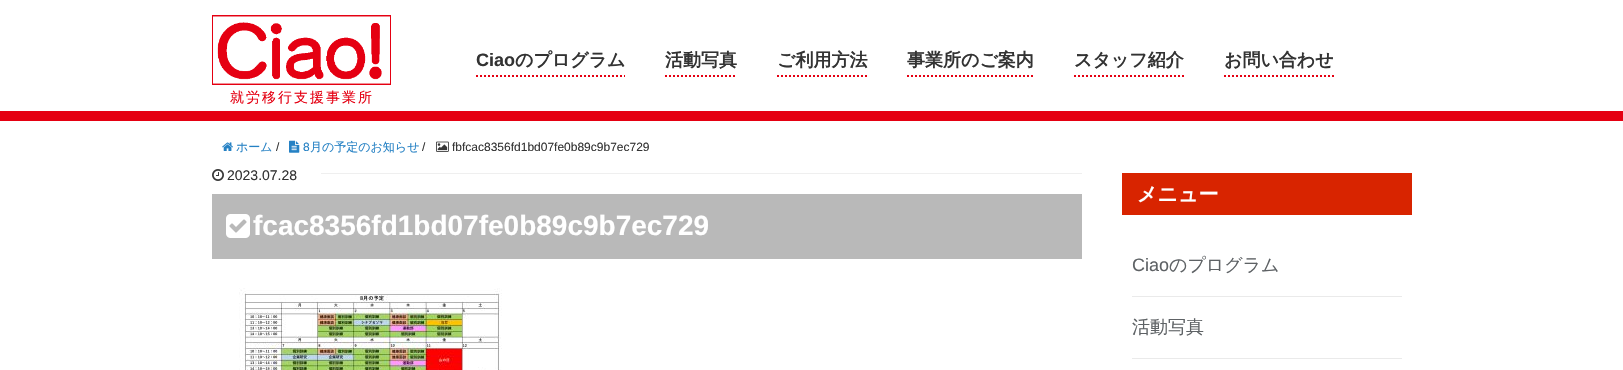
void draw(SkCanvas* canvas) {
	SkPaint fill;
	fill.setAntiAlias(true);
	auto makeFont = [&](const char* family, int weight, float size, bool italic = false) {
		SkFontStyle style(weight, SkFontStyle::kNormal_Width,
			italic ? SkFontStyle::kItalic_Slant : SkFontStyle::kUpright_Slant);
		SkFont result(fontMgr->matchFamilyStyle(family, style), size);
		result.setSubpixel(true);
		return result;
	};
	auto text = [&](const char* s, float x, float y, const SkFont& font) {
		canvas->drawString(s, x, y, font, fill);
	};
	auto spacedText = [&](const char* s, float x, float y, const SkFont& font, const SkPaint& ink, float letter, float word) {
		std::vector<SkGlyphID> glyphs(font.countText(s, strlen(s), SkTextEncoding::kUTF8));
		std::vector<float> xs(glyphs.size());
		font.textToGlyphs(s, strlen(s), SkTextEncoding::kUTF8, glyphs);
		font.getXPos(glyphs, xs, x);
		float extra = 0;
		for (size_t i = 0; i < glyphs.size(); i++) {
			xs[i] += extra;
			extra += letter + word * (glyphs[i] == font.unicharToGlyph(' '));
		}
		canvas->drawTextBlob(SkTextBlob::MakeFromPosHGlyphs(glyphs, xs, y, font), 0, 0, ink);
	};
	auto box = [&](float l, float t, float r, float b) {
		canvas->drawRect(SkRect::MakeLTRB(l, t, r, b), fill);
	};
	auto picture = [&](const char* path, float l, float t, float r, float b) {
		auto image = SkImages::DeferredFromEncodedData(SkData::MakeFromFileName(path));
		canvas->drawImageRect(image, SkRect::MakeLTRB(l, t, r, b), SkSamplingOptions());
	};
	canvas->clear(0xFFFFFFFF);
	fill.setColor(0xFFE50012);
	box(0, 111, 1623, 121);
	fill.setStyle(SkPaint::kStroke_Style);
	fill.setStrokeWidth(2);
	fill.setPathEffect(SkDashPathEffect::Make({{2, 2}}, 0));
	canvas->drawPath(SkPathBuilder().moveTo(476, 76).lineTo(625, 76).detach(), fill);
	fill.setPathEffect(nullptr);
	fill.setPathEffect(SkDashPathEffect::Make({{2, 2}}, 0));
	canvas->drawPath(SkPathBuilder().moveTo(665, 76).lineTo(737, 76).detach(), fill);
	fill.setPathEffect(nullptr);
	fill.setPathEffect(SkDashPathEffect::Make({{2, 2}}, 0));
	canvas->drawPath(SkPathBuilder().moveTo(777, 76).lineTo(867, 76).detach(), fill);
	fill.setPathEffect(nullptr);
	fill.setPathEffect(SkDashPathEffect::Make({{2, 2}}, 0));
	canvas->drawPath(SkPathBuilder().moveTo(907, 76).lineTo(1034, 76).detach(), fill);
	fill.setPathEffect(nullptr);
	fill.setPathEffect(SkDashPathEffect::Make({{2, 2}}, 0));
	canvas->drawPath(SkPathBuilder().moveTo(1074, 76).lineTo(1184, 76).detach(), fill);
	fill.setPathEffect(nullptr);
	fill.setPathEffect(SkDashPathEffect::Make({{2, 2}}, 0));
	canvas->drawPath(SkPathBuilder().moveTo(1224, 76).lineTo(1334, 76).detach(), fill);
	fill.setPathEffect(nullptr);
	picture("image0.png", 212, 15, 391, 85);
	picture("image1.png", 222, 142, 233, 151);
	picture("image2.png", 289, 140, 300, 153);
	picture("image3.png", 436, 141, 449, 152);
	fill.setStyle(SkPaint::kFill_Style);
	fill.setColor(0xFFEFEFEF);
	box(321, 173, 1082, 174);
	picture("image4.png", 212, 169, 224, 181);
	fill.setColor(0xFFB9B9B9);
	box(212, 194, 1082, 259);
	picture("image5.png", 226, 214, 250, 238);
	picture("image6.png", 239, 288, 502, 370);
	fill.setColor(0xFFD82400);
	box(1122, 173, 1412, 215);
	fill.setColor(0xFFEAEAEA);
	box(1132, 296, 1402, 297);
	box(1132, 358, 1402, 359);
	auto font1 = makeFont("Liberation Sans", 700, 18);
	fill.setColor(0xFF333333);
	text("Ciao", 476, 66, font1);
	auto font2 = makeFont("WenQuanYi Zen Hei", 700, 18);
	text("のプログラム", 515, 66, font2);
	text("活動写真", 665, 66, font2);
	text("ご利用方法", 777, 66, font2);
	text("事業所のご案内", 907, 66, font2);
	text("スタッフ紹介", 1074, 66, font2);
	text("お問い合わせ", 1224, 66, font2);
	auto font3 = makeFont("WenQuanYi Zen Hei", 500, 14);
	fill.setColor(0xFFE50012);
	spacedText("就労移行支援事業所", 230, 102, font3, fill, 2, 0);
	auto font4 = makeFont("WenQuanYi Zen Hei", 500, 12);
	fill.setColor(0xFF2581C4);
	text("ホーム", 236, 151, font4);
	auto font5 = makeFont("Liberation Sans", 400, 12);
	fill.setColor(0xFF333333);
	text("/", 276, 151, font5);
	fill.setColor(0xFF2581C4);
	text("8", 303, 151, font5);
	text("月の予定のお知らせ", 310, 151, font4);
	fill.setColor(0xFF333333);
	text("/", 422, 151, font5);
	text("fbfcac8356fd1bd07fe0b89c9b7ec729", 452, 151, font5);
	auto font6 = makeFont("Liberation Sans", 400, 14);
	text("2023.07.28", 227, 180, font6);
	auto font7 = makeFont("Liberation Sans", 700, 28);
	fill.setColor(0xFFFFFFFF);
	text("fcac8356fd1bd07fe0b89c9b7ec729", 253, 235, font7);
	auto font8 = makeFont("WenQuanYi Zen Hei", 700, 20);
	text("メニュー", 1137, 201, font8);
	auto font9 = makeFont("Liberation Sans", 400, 18);
	fill.setColor(0xFF5E6265);
	text("Ciao", 1132, 271, font9);
	auto font10 = makeFont("WenQuanYi Zen Hei", 500, 18);
	text("のプログラム", 1169, 271, font10);
	text("活動写真", 1132, 333, font10);
}
